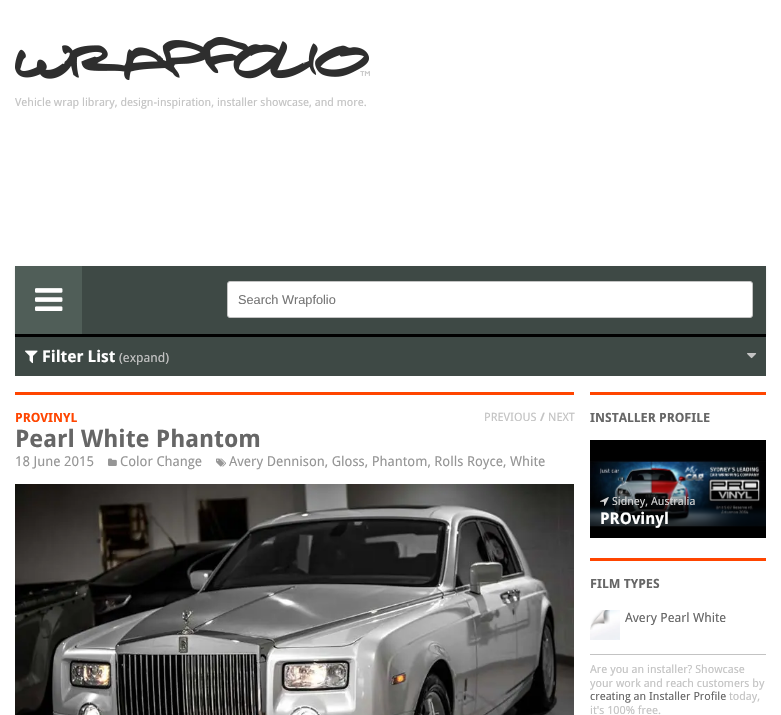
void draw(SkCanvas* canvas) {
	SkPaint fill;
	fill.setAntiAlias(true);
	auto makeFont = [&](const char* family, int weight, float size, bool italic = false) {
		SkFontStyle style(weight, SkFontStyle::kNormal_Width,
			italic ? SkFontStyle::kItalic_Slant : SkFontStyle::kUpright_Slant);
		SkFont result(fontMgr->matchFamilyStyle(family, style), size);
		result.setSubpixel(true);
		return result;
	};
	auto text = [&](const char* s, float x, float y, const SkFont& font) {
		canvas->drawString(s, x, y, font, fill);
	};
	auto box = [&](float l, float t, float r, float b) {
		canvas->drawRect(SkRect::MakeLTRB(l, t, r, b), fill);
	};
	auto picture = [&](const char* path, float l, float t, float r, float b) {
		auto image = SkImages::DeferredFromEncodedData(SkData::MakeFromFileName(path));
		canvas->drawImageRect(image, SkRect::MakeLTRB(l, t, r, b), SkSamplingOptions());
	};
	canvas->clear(0xFFFFFFFF);
	picture("image0.png", 15, 37, 370, 80);
	fill.setColor(0x1A000000);
	fill.setMaskFilter(SkMaskFilter::MakeBlur(kNormal_SkBlurStyle, 1));
	canvas->drawRect(SkRect::MakeLTRB(15, 267, 766, 335), fill);
	fill.setMaskFilter(nullptr);
	fill.setColor(0xFF3E4945);
	box(82, 266, 766, 334);
	fill.setColor(0xFF505E58);
	box(15, 266, 82, 334);
	picture("image1.png", 35, 288, 63, 311);
	fill.setColor(0xFFFFFFFF);
	canvas->drawRoundRect(SkRect::MakeLTRB(227.5f, 281.5f, 752.5f, 317.5f), 2.5f, 2.5f, fill);
	fill.setStyle(SkPaint::kStroke_Style);
	fill.setStrokeWidth(1);
	fill.setColor(0xFFC3C3C3);
	canvas->drawRoundRect(SkRect::MakeLTRB(227.5f, 281.5f, 752.5f, 317.5f), 2.5f, 2.5f, fill);
	fill.setStyle(SkPaint::kFill_Style);
	fill.setColor(0xFF000000);
	box(15, 334, 766, 337);
	fill.setColor(0xFF3E4945);
	box(15, 337, 766, 376);
	picture("image2.png", 25, 350, 38, 364);
	picture("image3.png", 747, 353, 757, 359);
	fill.setColor(0xFFFF4500);
	box(15, 392, 574, 395);
	picture("image4.png", 108, 458, 117, 466);
	picture("image5.png", 216, 458, 226, 467);
	picture("image6.png", 15, 484, 574, 715);
	box(590, 392, 766, 395);
	picture("image7.png", 590, 440, 766, 538);
	picture("image8.png", 600, 497, 609, 506);
	box(590, 558, 766, 561);
	picture("image9.png", 590, 610, 620, 640);
	picture("image10.png", 590, 610, 610, 630);
	fill.setColor(0xFFC3C3C3);
	box(590, 654, 766, 655);
	auto font1 = makeFont("Droid Sans", 400, 11.2f);
	text("Vehicle wrap library, design-inspiration, installer showcase, and more.", 15, 106, font1);
	auto font2 = makeFont("Liberation Sans", 400, 12.75f);
	fill.setColor(0xFF757575);
	text("Search Wrapfolio", 238, 304, font2);
	auto font3 = makeFont("Droid Sans", 700, 16);
	fill.setColor(0xFFFFFFFF);
	text("Filter List", 42, 362, font3);
	auto font4 = makeFont("Droid Sans", 400, 12.75f);
	fill.setColor(0xFFC3C3C3);
	text("(expand)", 119, 362, font4);
	auto font5 = makeFont("Droid Sans", 700, 12.75f);
	fill.setColor(0xFFFF4500);
	text("PROVINYL", 15, 422, font5);
	auto font6 = makeFont("Droid Sans", 400, 11.5f);
	fill.setColor(0xFFC3C3C3);
	text("PREVIOUS", 484, 421, font6);
	auto font7 = makeFont("Droid Sans", 700, 11.5f);
	text("/", 540, 421, font7);
	text("NEXT", 548, 421, font6);
	auto font8 = makeFont("Droid Sans", 700, 24);
	fill.setColor(0xFF666666);
	text("Pearl White Phantom", 15, 447, font8);
	auto font9 = makeFont("Droid Sans", 400, 13.6f);
	fill.setColor(0xFF969696);
	text("18 June 2015", 15, 466, font9);
	text("Color Change", 120, 466, font9);
	text("Avery Dennison, Gloss, Phantom, Rolls Royce, White", 229, 466, font9);
	fill.setColor(0xFF666666);
	text("INSTALLER PROFILE", 590, 422, font5);
	fill.setColor(0xFFD3D3D3);
	text("Sidney, Australia", 612, 505, font1);
	fill.setColor(0xFFFFFFFF);
	text("PROvinyl", 600, 524, font3);
	fill.setColor(0xFF666666);
	text("FILM TYPES", 590, 588, font5);
	text("Avery Pearl White", 625, 622, font4);
	fill.setColor(0xFFC3C3C3);
	text("Are you an installer? Showcase", 590, 673, font1);
	text("your work and reach customers by", 590, 687, font1);
	fill.setColor(0xFF666666);
	text("creating an Installer Profile", 590, 700, font1);
	fill.setColor(0xFFC3C3C3);
	text("today,", 729, 700, font1);
	text("it's 100% free.", 590, 714, font1);
}
